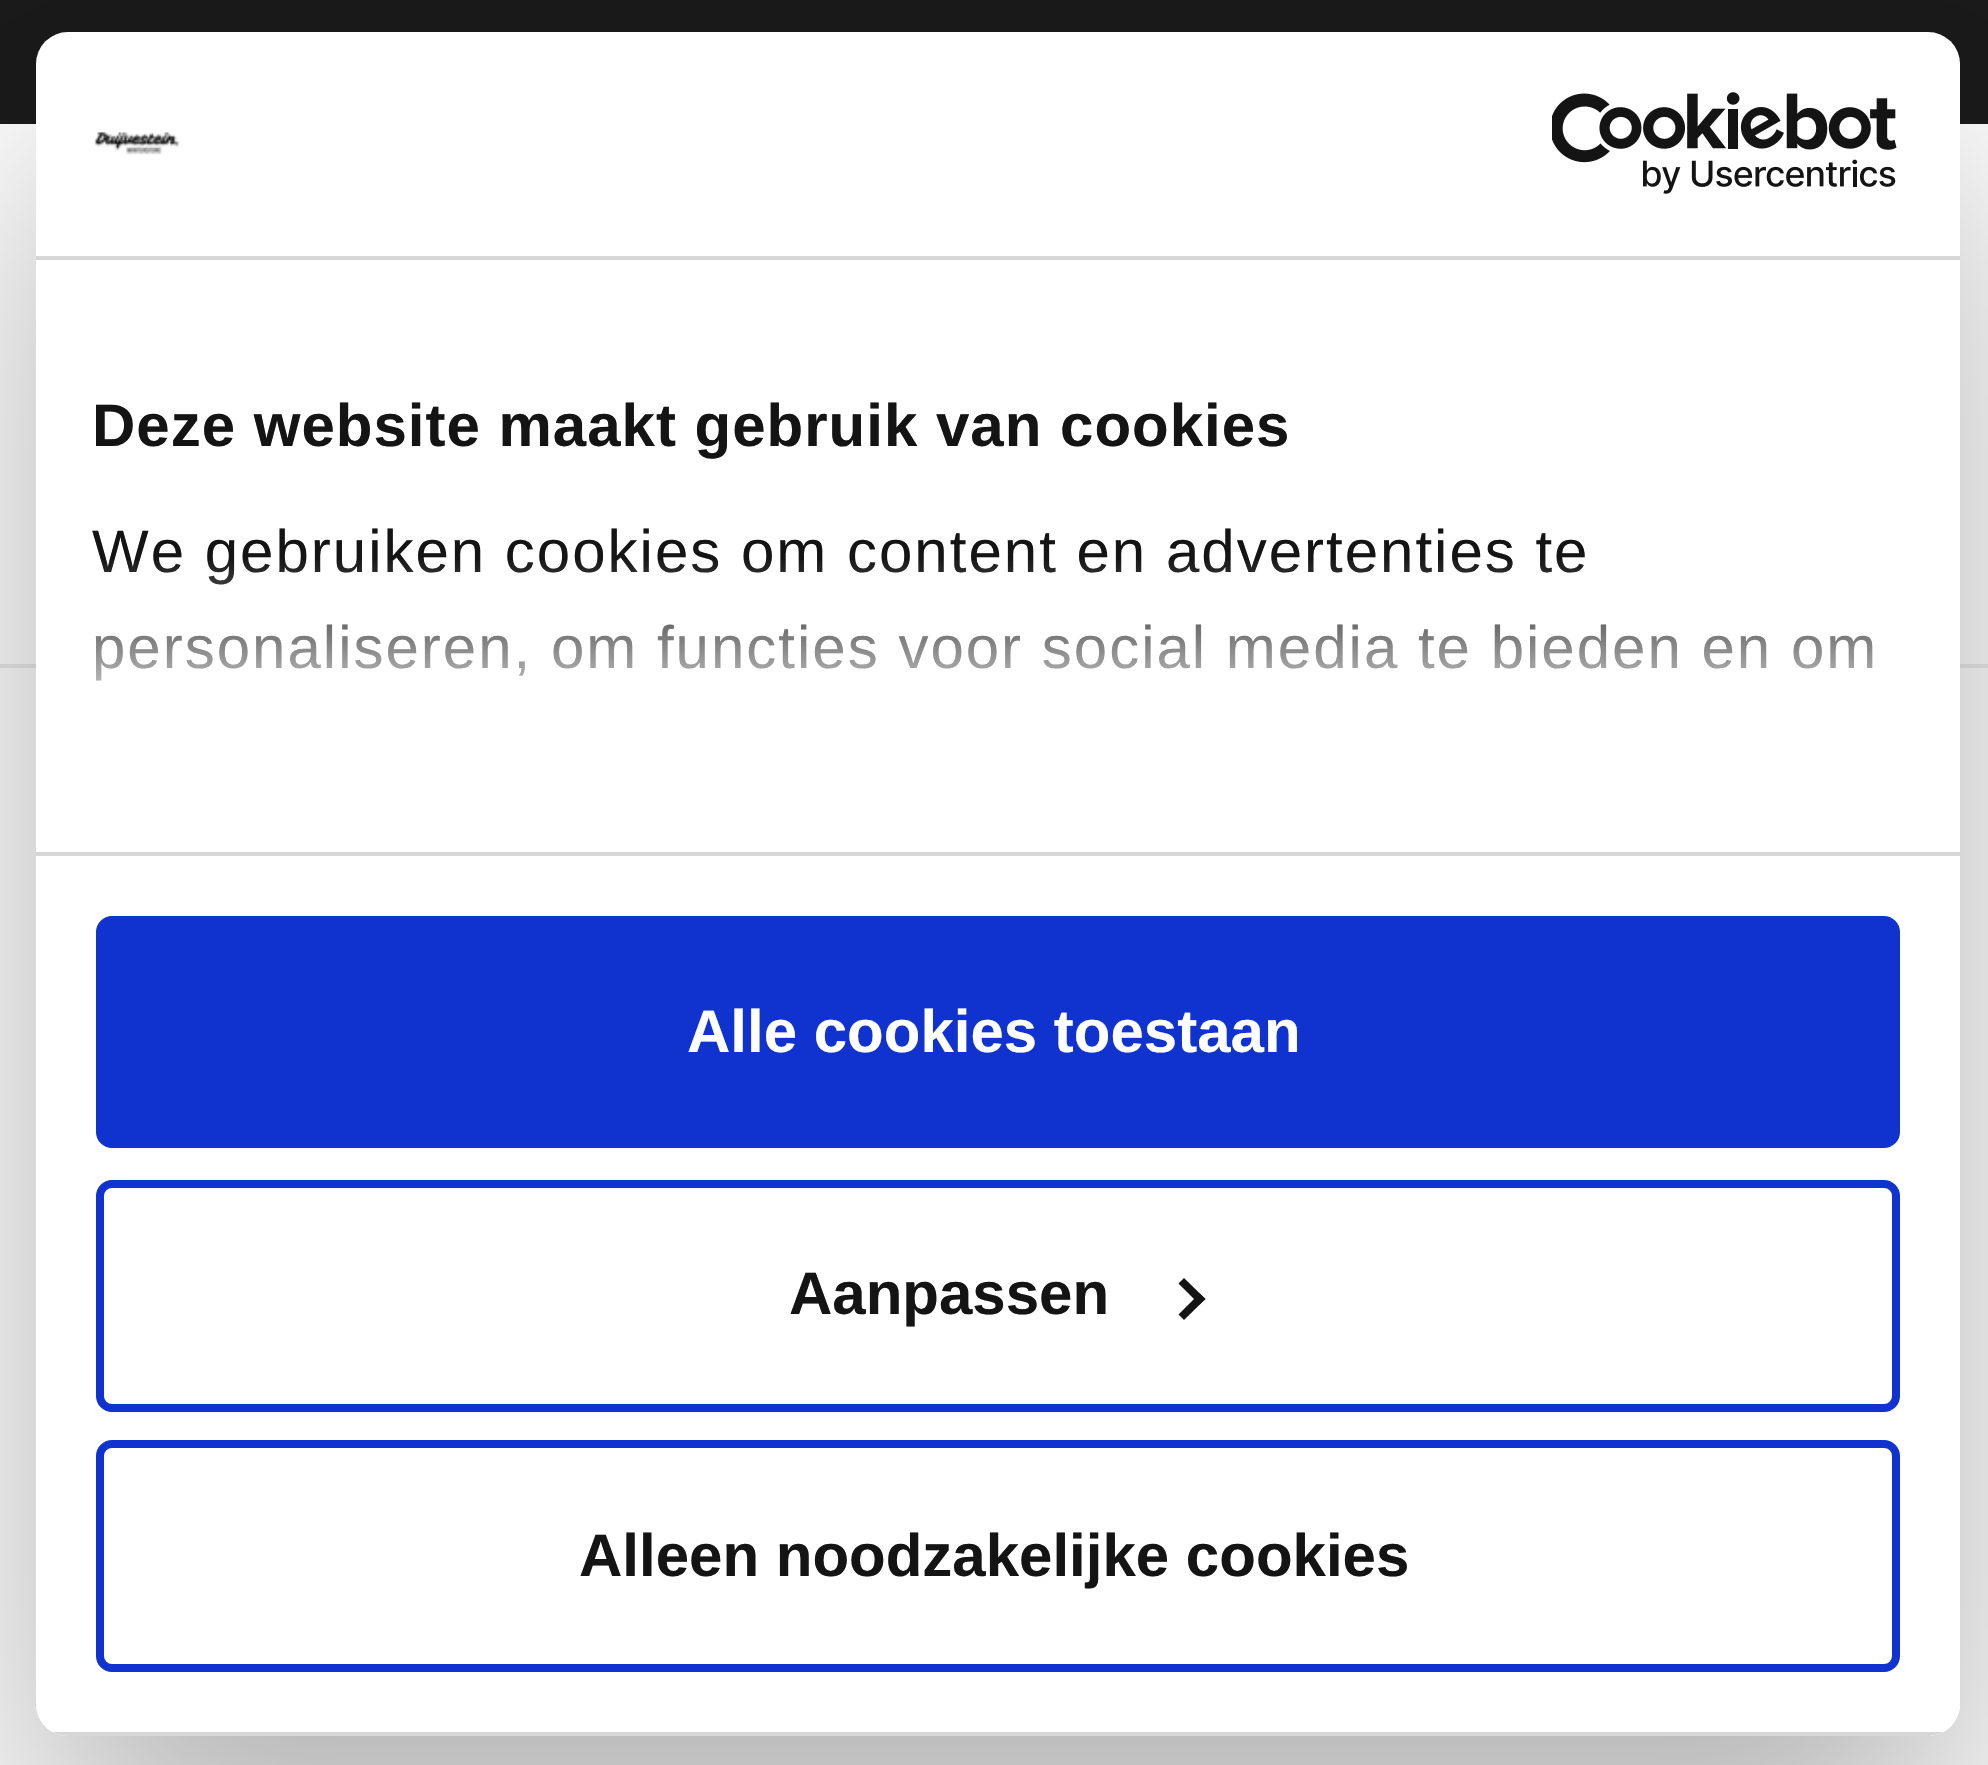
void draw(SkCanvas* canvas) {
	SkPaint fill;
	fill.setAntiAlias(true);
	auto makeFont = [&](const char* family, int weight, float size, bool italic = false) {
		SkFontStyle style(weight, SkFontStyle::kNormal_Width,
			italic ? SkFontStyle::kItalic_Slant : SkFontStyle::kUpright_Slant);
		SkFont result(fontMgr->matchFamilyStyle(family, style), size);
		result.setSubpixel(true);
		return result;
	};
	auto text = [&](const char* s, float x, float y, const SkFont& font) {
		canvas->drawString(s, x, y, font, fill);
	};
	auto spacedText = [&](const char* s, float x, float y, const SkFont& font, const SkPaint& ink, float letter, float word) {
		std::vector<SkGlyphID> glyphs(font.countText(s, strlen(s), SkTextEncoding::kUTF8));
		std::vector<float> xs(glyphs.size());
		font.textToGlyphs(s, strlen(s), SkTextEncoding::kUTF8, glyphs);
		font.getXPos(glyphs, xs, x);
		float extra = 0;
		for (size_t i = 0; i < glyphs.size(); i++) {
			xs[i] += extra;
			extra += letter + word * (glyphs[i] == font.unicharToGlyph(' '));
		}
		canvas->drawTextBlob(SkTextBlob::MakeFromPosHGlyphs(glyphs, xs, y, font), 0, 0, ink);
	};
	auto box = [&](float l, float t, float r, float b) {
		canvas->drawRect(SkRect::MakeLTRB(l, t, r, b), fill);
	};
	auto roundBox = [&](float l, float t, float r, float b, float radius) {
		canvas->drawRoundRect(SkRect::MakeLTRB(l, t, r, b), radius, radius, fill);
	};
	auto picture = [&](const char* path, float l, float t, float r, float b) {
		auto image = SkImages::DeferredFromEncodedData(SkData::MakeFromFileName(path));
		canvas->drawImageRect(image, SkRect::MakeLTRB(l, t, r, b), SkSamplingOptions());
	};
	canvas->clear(0xFFFFFFFF);
	fill.setColor(0xFFEBEBEB);
	box(0, 664, 1988, 668);
	fill.setColor(0xFF1A1A1A);
	box(0, 0, 1988, 124);
	canvas->save();
	canvas->clipPath(SkPathBuilder(SkPathFillType::kEvenOdd).moveTo(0, 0).lineTo(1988, 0).lineTo(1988, 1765).lineTo(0, 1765).close().moveTo(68, 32).lineTo(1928, 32).cubicTo(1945.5f, 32, 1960, 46.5f, 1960, 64).lineTo(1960, 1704).cubicTo(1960, 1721.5f, 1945.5f, 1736, 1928, 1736).lineTo(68, 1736).cubicTo(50.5f, 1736, 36, 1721.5f, 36, 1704).lineTo(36, 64).cubicTo(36, 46.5f, 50.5f, 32, 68, 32).close().detach(), true);
	fill.setColor(0x4D000000);
	fill.setMaskFilter(SkMaskFilter::MakeBlur(kNormal_SkBlurStyle, 136));
	canvas->drawRoundRect(SkRect::MakeLTRB(36, 160, 1960, 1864), 32, 32, fill);
	fill.setMaskFilter(nullptr);
	canvas->restore();
	fill.setColor(0xFFFFFFFF);
	roundBox(36, 32, 1960, 1736, 32);
	fill.setColor(0xFFD6D6D6);
	box(36, 256, 1960, 260);
	picture("image0.png", 94, 131, 180, 155);
	picture("image1.png", 1552, 92, 1897, 194);
	box(36, 852, 1960, 856);
	canvas->save();
	canvas->clipPath(SkPathBuilder().moveTo(68, 32).lineTo(1928, 32).cubicTo(1945.5f, 32, 1960, 46.5f, 1960, 64).lineTo(1960, 1704).cubicTo(1960, 1721.5f, 1945.5f, 1736, 1928, 1736).lineTo(68, 1736).cubicTo(50.5f, 1736, 36, 1721.5f, 36, 1704).lineTo(36, 64).cubicTo(36, 46.5f, 50.5f, 32, 68, 32).close().detach(), true);
	box(52, 1732, 1944, 1736);
	canvas->restore();
	fill.setColor(0xFF1032CF);
	canvas->drawRoundRect(SkRect::MakeLTRB(100, 920, 1896, 1144), 12, 12, fill);
	fill.setStyle(SkPaint::kStroke_Style);
	fill.setStrokeWidth(8);
	canvas->drawRoundRect(SkRect::MakeLTRB(100, 920, 1896, 1144), 12, 12, fill);
	canvas->drawRoundRect(SkRect::MakeLTRB(100, 1184, 1896, 1408), 12, 12, fill);
	fill.setStyle(SkPaint::kFill_Style);
	fill.setColor(0xFF141414);
	canvas->drawPath(SkPathBuilder().moveTo(1184, 1278).lineTo(1205.5f, 1299).lineTo(1199.5f, 1304.5f).lineTo(1178.5f, 1283.5f).close().detach(), fill);
	canvas->drawPath(SkPathBuilder().moveTo(1199.5f, 1293.5f).lineTo(1205.5f, 1299).lineTo(1184, 1320).lineTo(1178.5f, 1314.5f).close().detach(), fill);
	fill.setStyle(SkPaint::kStroke_Style);
	fill.setColor(0xFF1032CF);
	canvas->drawRoundRect(SkRect::MakeLTRB(100, 1444, 1896, 1668), 12, 12, fill);
	auto font1 = makeFont("Liberation Sans", 700, 60);
	fill.setStyle(SkPaint::kFill_Style);
	fill.setColor(0xFF141414);
	spacedText("Deze website maakt gebruik van cookies", 92, 446, font1, fill, 1, 0);
	auto font2 = makeFont("Liberation Sans", 400, 60);
	spacedText("We gebruiken cookies om content en advertenties te", 92, 572, font2, fill, 2, 0);
	spacedText("personaliseren, om functies voor social media te bieden en om", 92, 668, font2, fill, 2, 0);
	{
		const SkColor colors[] = {0xFFFFFFFF, 0xCCFFFFFF, 0x00FFFFFF};
		const float stops[] = {0, 0.5f, 1};
		const SkPoint ends[] = {{970, 852}, {970, 556}};
		fill.setShader(SkGradientShader::MakeLinear(ends, colors, stops, 3, SkTileMode::kClamp));
		fill.setAlpha(255);
	}
	box(95, 560, 1873, 681);
	fill.setShader(nullptr);
	fill.setColor(0xFFFFFFFF);
	text("Alle cookies toestaan", 687, 1052, font1);
	fill.setColor(0xFF141414);
	text("Aanpassen", 789, 1314, font1);
	text("Alleen noodzakelijke cookies", 579, 1576, font1);
}
